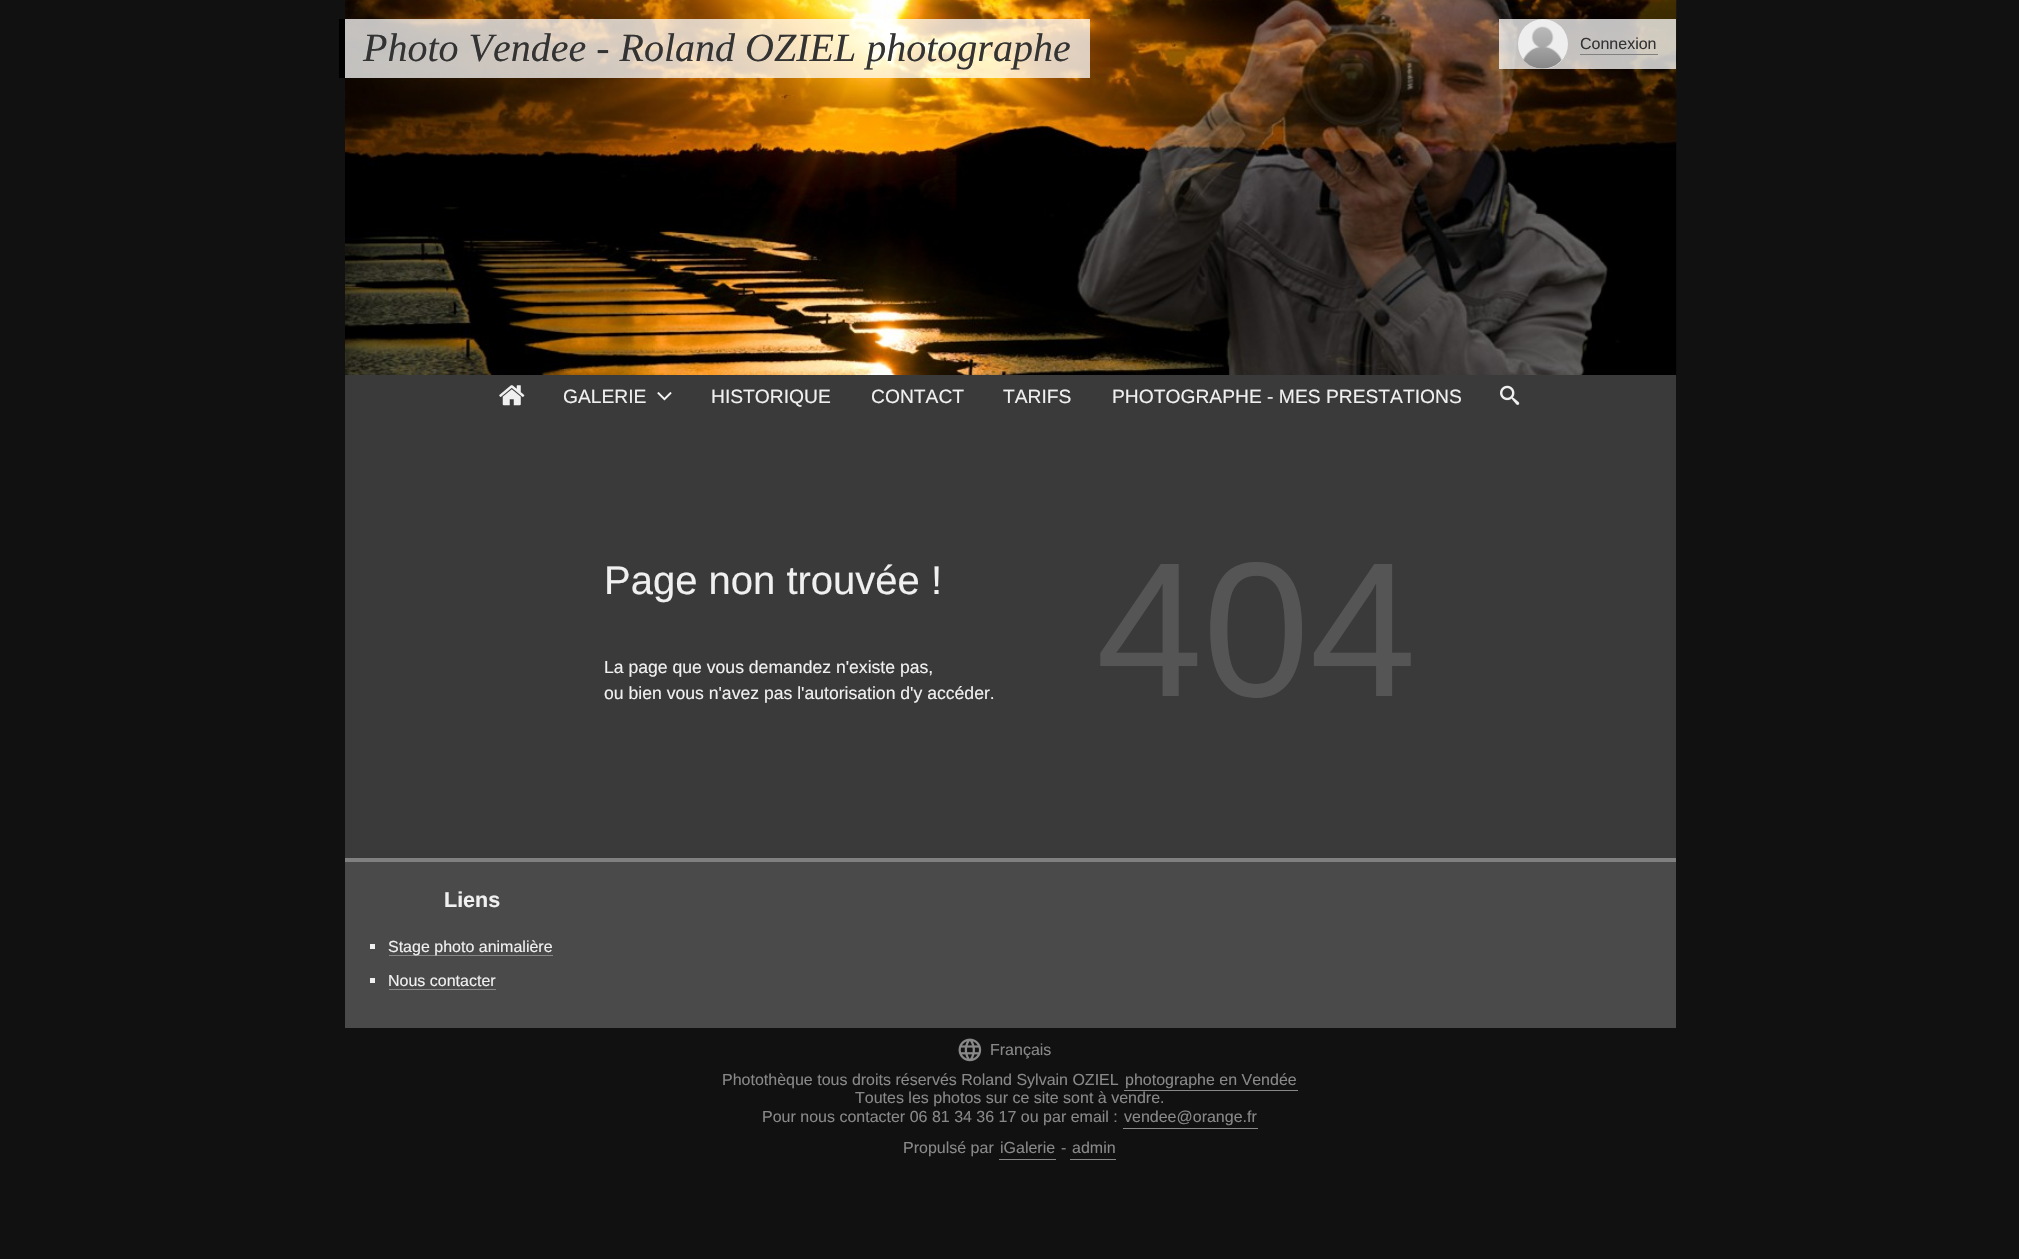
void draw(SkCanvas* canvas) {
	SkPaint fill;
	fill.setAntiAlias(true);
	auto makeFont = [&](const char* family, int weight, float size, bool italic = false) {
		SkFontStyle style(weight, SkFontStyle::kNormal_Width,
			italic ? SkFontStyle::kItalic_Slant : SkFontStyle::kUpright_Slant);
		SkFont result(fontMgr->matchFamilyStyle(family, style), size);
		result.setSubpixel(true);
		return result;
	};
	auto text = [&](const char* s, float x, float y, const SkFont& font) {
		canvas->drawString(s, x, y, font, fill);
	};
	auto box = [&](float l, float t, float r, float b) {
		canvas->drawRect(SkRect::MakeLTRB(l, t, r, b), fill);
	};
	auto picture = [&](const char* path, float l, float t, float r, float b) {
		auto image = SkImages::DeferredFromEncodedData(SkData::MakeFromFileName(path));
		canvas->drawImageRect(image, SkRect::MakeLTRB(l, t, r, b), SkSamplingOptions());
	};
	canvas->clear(0xFF111111);
	fill.setColor(0xFF3A3A3A);
	box(345, 375, 1676, 858);
	picture("image0.png", 345, 0, 1677, 375);
	fill.setColor(0xBFFFFFFF);
	box(345, 19, 1090, 78);
	fill.setColor(0xFF000000);
	box(339, 19, 345, 78);
	fill.setColor(0xBFFFFFFF);
	box(1499, 19, 1676, 69);
	fill.setColor(0xFFEEEEEE);
	canvas->drawCircle(1543, 44, 25, fill);
	picture("image1.png", 1523, 26, 1562, 69);
	fill.setColor(0xFF808080);
	box(1580, 54, 1658, 55);
	picture("image2.png", 499, 385, 525, 406);
	picture("image3.png", 657, 392, 672, 401);
	picture("image4.png", 1500, 385, 1520, 405);
	fill.setColor(0xFF4A4A4A);
	box(345, 862, 1676, 1028);
	fill.setColor(0xFF808080);
	box(345, 858, 1676, 862);
	fill.setColor(0xFFF0F0F0);
	box(370, 944, 375, 949);
	fill.setColor(0xFF888888);
	box(389, 955, 553, 956);
	fill.setColor(0xFFF0F0F0);
	box(370, 978, 375, 983);
	fill.setColor(0xFF888888);
	box(389, 989, 496, 990);
	picture("image5.png", 958, 1038, 982, 1062);
	box(1124, 1090, 1298, 1091);
	box(1123, 1128, 1258, 1129);
	box(999, 1159, 1056, 1160);
	box(1070, 1159, 1116, 1160);
	auto font1 = makeFont("Liberation Serif", 400, 40, true);
	fill.setColor(0xFF333333);
	text("Photo Vendee - Roland OZIEL photographe", 363, 61, font1);
	auto font2 = makeFont("Liberation Sans", 400, 16);
	text("Connexion", 1580, 49, font2);
	auto font3 = makeFont("Liberation Sans", 400, 19.25f);
	fill.setColor(0xFFF0F0F0);
	text("GALERIE", 563, 403, font3);
	text("HISTORIQUE", 711, 403, font3);
	text("CONTACT", 871, 403, font3);
	text("TARIFS", 1003, 403, font3);
	text("PHOTOGRAPHE - MES PRESTATIONS", 1112, 403, font3);
	auto font4 = makeFont("Liberation Sans", 400, 40);
	text("Page non trouvée !", 604, 594, font4);
	auto font5 = makeFont("Liberation Sans", 400, 192);
	fill.setColor(0xFF555555);
	text("404", 1096, 696, font5);
	auto font6 = makeFont("Liberation Sans", 400, 17.6f);
	fill.setColor(0xFFF0F0F0);
	text("La page que vous demandez n'existe pas,", 604, 673, font6);
	text("ou bien vous n'avez pas l'autorisation d'y accéder.", 604, 699, font6);
	auto font7 = makeFont("Liberation Sans", 700, 21.5f);
	text("Liens", 444, 907, font7);
	text("Stage photo animalière", 388, 952, font2);
	text("Nous contacter", 388, 986, font2);
	fill.setColor(0xFF888888);
	text("Français", 990, 1055, font2);
	text("Photothèque tous droits réservés Roland Sylvain OZIEL", 722, 1085, font2);
	text("photographe en Vendée", 1125, 1085, font2);
	text("Toutes les photos sur ce site sont à vendre.", 855, 1103, font2);
	text("Pour nous contacter 06 81 34 36 17 ou par email :", 762, 1122, font2);
	text("vendee@orange.fr", 1124, 1122, font2);
	text("Propulsé par", 903, 1153, font2);
	text("iGalerie", 1000, 1153, font2);
	text("-", 1061, 1153, font2);
	text("admin", 1072, 1153, font2);
}
